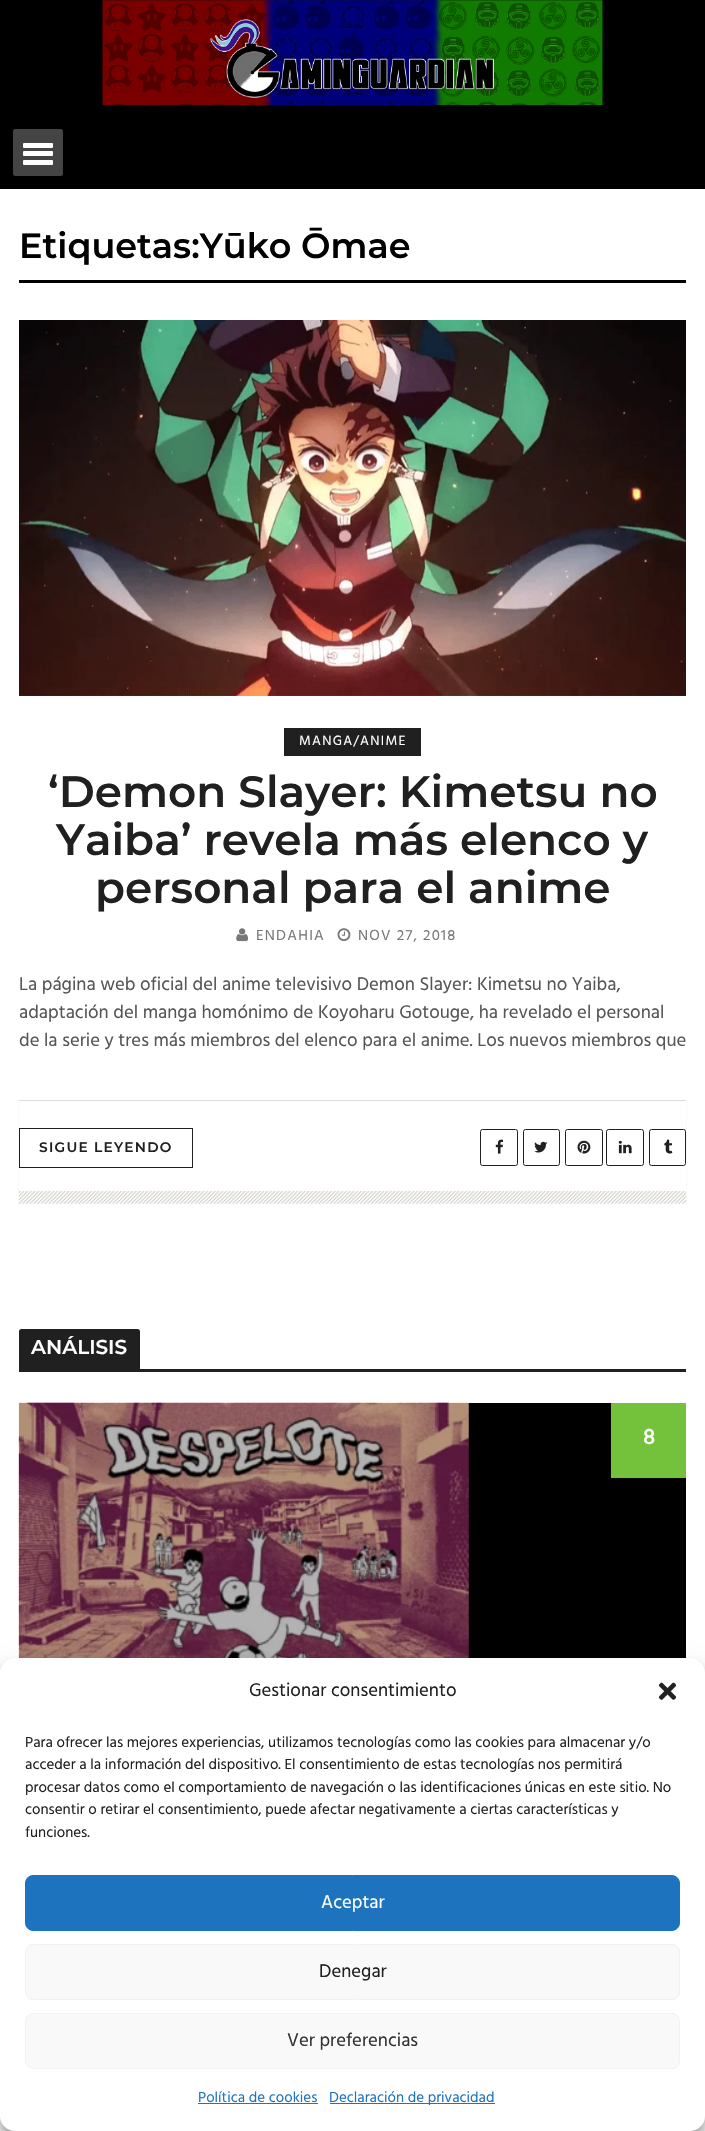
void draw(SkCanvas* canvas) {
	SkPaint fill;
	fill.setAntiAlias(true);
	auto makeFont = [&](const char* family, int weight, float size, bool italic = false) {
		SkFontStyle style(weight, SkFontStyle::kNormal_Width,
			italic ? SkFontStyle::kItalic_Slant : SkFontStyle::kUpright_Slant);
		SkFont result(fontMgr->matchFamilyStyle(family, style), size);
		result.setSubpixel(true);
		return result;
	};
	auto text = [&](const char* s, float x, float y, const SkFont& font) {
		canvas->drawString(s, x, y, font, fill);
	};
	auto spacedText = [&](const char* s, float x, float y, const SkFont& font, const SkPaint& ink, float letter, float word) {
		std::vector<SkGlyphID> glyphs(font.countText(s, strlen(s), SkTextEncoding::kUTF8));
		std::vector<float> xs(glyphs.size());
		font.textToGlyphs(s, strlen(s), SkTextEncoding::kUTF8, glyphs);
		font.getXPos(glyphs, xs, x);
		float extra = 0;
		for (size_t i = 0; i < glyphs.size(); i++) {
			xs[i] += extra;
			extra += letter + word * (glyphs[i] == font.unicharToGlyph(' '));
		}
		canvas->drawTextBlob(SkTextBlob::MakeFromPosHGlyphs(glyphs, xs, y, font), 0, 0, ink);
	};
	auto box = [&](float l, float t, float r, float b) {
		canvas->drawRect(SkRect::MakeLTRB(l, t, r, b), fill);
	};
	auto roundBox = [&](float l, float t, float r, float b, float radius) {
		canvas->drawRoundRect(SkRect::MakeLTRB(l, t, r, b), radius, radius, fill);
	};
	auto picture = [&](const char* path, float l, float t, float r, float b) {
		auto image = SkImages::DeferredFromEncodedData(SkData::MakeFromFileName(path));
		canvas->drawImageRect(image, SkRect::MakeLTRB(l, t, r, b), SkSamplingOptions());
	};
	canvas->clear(0xFFFFFFFF);
	fill.setColor(0xFF000000);
	box(0, 0, 705, 189);
	picture("image0.png", 102, 0, 603, 105);
	fill.setColor(0xFF444444);
	roundBox(13, 129, 63, 176, 2.5f);
	fill.setColor(0xFFFFFFFF);
	roundBox(23, 143, 53, 148, 1);
	roundBox(23, 151, 53, 156, 1);
	roundBox(23, 160, 53, 165, 1);
	fill.setColor(0xFF000000);
	box(19, 280, 686, 283);
	picture("image1.png", 19, 320, 686, 696);
	fill.setColor(0xFF202020);
	box(284, 728, 421, 756);
	picture("image2.png", 236, 928, 248, 942);
	picture("image3.png", 337, 928, 351, 941);
	picture("image4.png", 18, 1101, 687, 1204);
	fill.setColor(0xFFDCDCDC);
	box(19, 1100, 686, 1101);
	fill.setColor(0xFFFFFFFF);
	box(19, 1101, 686, 1191);
	fill.setStyle(SkPaint::kStroke_Style);
	fill.setStrokeWidth(1);
	fill.setColor(0xFF202020);
	canvas->drawRect(SkRect::MakeLTRB(19.5f, 1128.5f, 192.5f, 1167.5f), fill);
	canvas->drawRoundRect(SkRect::MakeLTRB(480.5f, 1129.5f, 517.5f, 1165.5f), 2, 2, fill);
	picture("image5.png", 495, 1139, 504, 1154);
	canvas->drawRoundRect(SkRect::MakeLTRB(523.5f, 1129.5f, 559.5f, 1165.5f), 2, 2, fill);
	picture("image6.png", 534, 1141, 548, 1153);
	canvas->drawRoundRect(SkRect::MakeLTRB(565.5f, 1129.5f, 602.5f, 1165.5f), 2, 2, fill);
	picture("image7.png", 577, 1140, 591, 1154);
	canvas->drawRoundRect(SkRect::MakeLTRB(606.5f, 1129.5f, 643.5f, 1165.5f), 2, 2, fill);
	picture("image8.png", 618, 1140, 632, 1154);
	canvas->drawRoundRect(SkRect::MakeLTRB(649.5f, 1129.5f, 685.5f, 1165.5f), 2, 2, fill);
	picture("image9.png", 664, 1139, 673, 1154);
	fill.setStyle(SkPaint::kFill_Style);
	box(19, 1369, 686, 1372);
	canvas->drawPath(SkPathBuilder().moveTo(21.5f, 1329).lineTo(137.5f, 1329).cubicTo(139, 1329, 140, 1330, 140, 1331.5f).lineTo(140, 1369).lineTo(19, 1369).lineTo(19, 1331.5f).cubicTo(19, 1330, 20, 1329, 21.5f, 1329).close().detach(), fill);
	fill.setColor(0xFF000000);
	box(19, 1403, 686, 1658);
	picture("image10.png", 18, 1402, 469, 1658);
	fill.setColor(0xFF74C23B);
	box(611, 1403, 686, 1478);
	fill.setColor(0x3B000000);
	fill.setMaskFilter(SkMaskFilter::MakeBlur(kNormal_SkBlurStyle, 4));
	canvas->drawRoundRect(SkRect::MakeLTRB(0, 1665, 705, 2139), 15, 15, fill);
	fill.setMaskFilter(nullptr);
	fill.setColor(0x30000000);
	fill.setMaskFilter(SkMaskFilter::MakeBlur(kNormal_SkBlurStyle, 12.5f));
	canvas->drawRoundRect(SkRect::MakeLTRB(0, 1670, 705, 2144), 15, 15, fill);
	fill.setMaskFilter(nullptr);
	fill.setColor(0xFFFFFFFF);
	roundBox(0, 1658, 705, 2131, 15);
	picture("image11.png", 658, 1682, 677, 1700);
	fill.setColor(0xFF1E73BE);
	canvas->drawRoundRect(SkRect::MakeLTRB(25.5f, 1875.5f, 679.5f, 1930.5f), 7.5f, 7.5f, fill);
	fill.setStyle(SkPaint::kStroke_Style);
	canvas->drawRoundRect(SkRect::MakeLTRB(25.5f, 1875.5f, 679.5f, 1930.5f), 7.5f, 7.5f, fill);
	fill.setStyle(SkPaint::kFill_Style);
	fill.setColor(0xFFF9F9F9);
	canvas->drawRoundRect(SkRect::MakeLTRB(25.5f, 1944.5f, 679.5f, 1999.5f), 7.5f, 7.5f, fill);
	fill.setStyle(SkPaint::kStroke_Style);
	fill.setColor(0xFFF2F2F2);
	canvas->drawRoundRect(SkRect::MakeLTRB(25.5f, 1944.5f, 679.5f, 1999.5f), 7.5f, 7.5f, fill);
	fill.setStyle(SkPaint::kFill_Style);
	fill.setColor(0xFFF9F9F9);
	canvas->drawRoundRect(SkRect::MakeLTRB(25.5f, 2013.5f, 679.5f, 2068.5f), 7.5f, 7.5f, fill);
	fill.setStyle(SkPaint::kStroke_Style);
	fill.setColor(0xFFF2F2F2);
	canvas->drawRoundRect(SkRect::MakeLTRB(25.5f, 2013.5f, 679.5f, 2068.5f), 7.5f, 7.5f, fill);
	fill.setStyle(SkPaint::kFill_Style);
	fill.setColor(0xFF1E73BE);
	box(198, 2103, 318, 2104);
	box(330, 2103, 495, 2104);
	auto font1 = makeFont("Montserrat", 600, 35);
	fill.setColor(0xFF000000);
	text("Etiquetas:Yūko Ōmae", 19, 258, font1);
	auto font2 = makeFont("Hind", 400, 13.75f);
	fill.setColor(0xFFFFFFFF);
	spacedText("MANGA/ANIME", 299, 745, font2, fill, 1.25f, 0);
	auto font3 = makeFont("Montserrat", 600, 43.75f);
	fill.setColor(0xFF202020);
	text("‘Demon Slayer: Kimetsu no", 48, 807, font3);
	text("Yaiba’ revela más elenco y", 56, 855, font3);
	text("personal para el anime", 95, 903, font3);
	auto font4 = makeFont("Hind", 400, 15);
	fill.setColor(0xFF777777);
	spacedText("ENDAHIA", 256, 940, font4, fill, 1.25f, 0);
	spacedText("NOV 27, 2018", 358, 940, font4, fill, 1.25f, 0);
	auto font5 = makeFont("Hind", 400, 18.75f);
	fill.setColor(0xFF555555);
	text("La página web oficial del anime televisivo Demon Slayer: Kimetsu no Yaiba,", 19, 990, font5);
	text("adaptación del manga homónimo de Koyoharu Gotouge, ha revelado el personal", 19, 1018, font5);
	text("de la serie y tres más miembros del elenco para el anime. Los nuevos miembros que", 19, 1046, font5);
	auto font6 = makeFont("Montserrat", 600, 13.75f);
	fill.setColor(0xFF202020);
	spacedText("SIGUE LEYENDO", 39, 1152, font6, fill, 1.25f, 0);
	auto font7 = makeFont("Montserrat", 600, 20);
	fill.setColor(0xFFFFFFFF);
	text("ANÁLISIS", 31, 1354, font7);
	auto font8 = makeFont("Hind", 700, 22);
	text("8", 643, 1444, font8);
	fill.setColor(0xFF202020);
	text("Gestionar consentimiento", 249, 1696, font5);
	text("Para ofrecer las mejores experiencias, utilizamos tecnologías como las cookies para almacenar y/o", 25, 1747, font4);
	text("acceder a la información del dispositivo. El consentimiento de estas tecnologías nos permitirá", 25, 1769, font4);
	text("procesar datos como el comportamiento de navegación o las identificaciones únicas en este sitio. No", 25, 1792, font4);
	text("consentir o retirar el consentimiento, puede afectar negativamente a ciertas características y", 25, 1814, font4);
	text("funciones.", 25, 1837, font4);
	fill.setColor(0xFFFFFFFF);
	text("Aceptar", 321, 1908, font5);
	fill.setColor(0xFF202020);
	text("Denegar", 319, 1977, font5);
	fill.setColor(0xFF333333);
	text("Ver preferencias", 287, 2046, font5);
	fill.setColor(0xFF1E73BE);
	text("Política de cookies", 198, 2102, font4);
	text("Declaración de privacidad", 329, 2102, font4);
}
